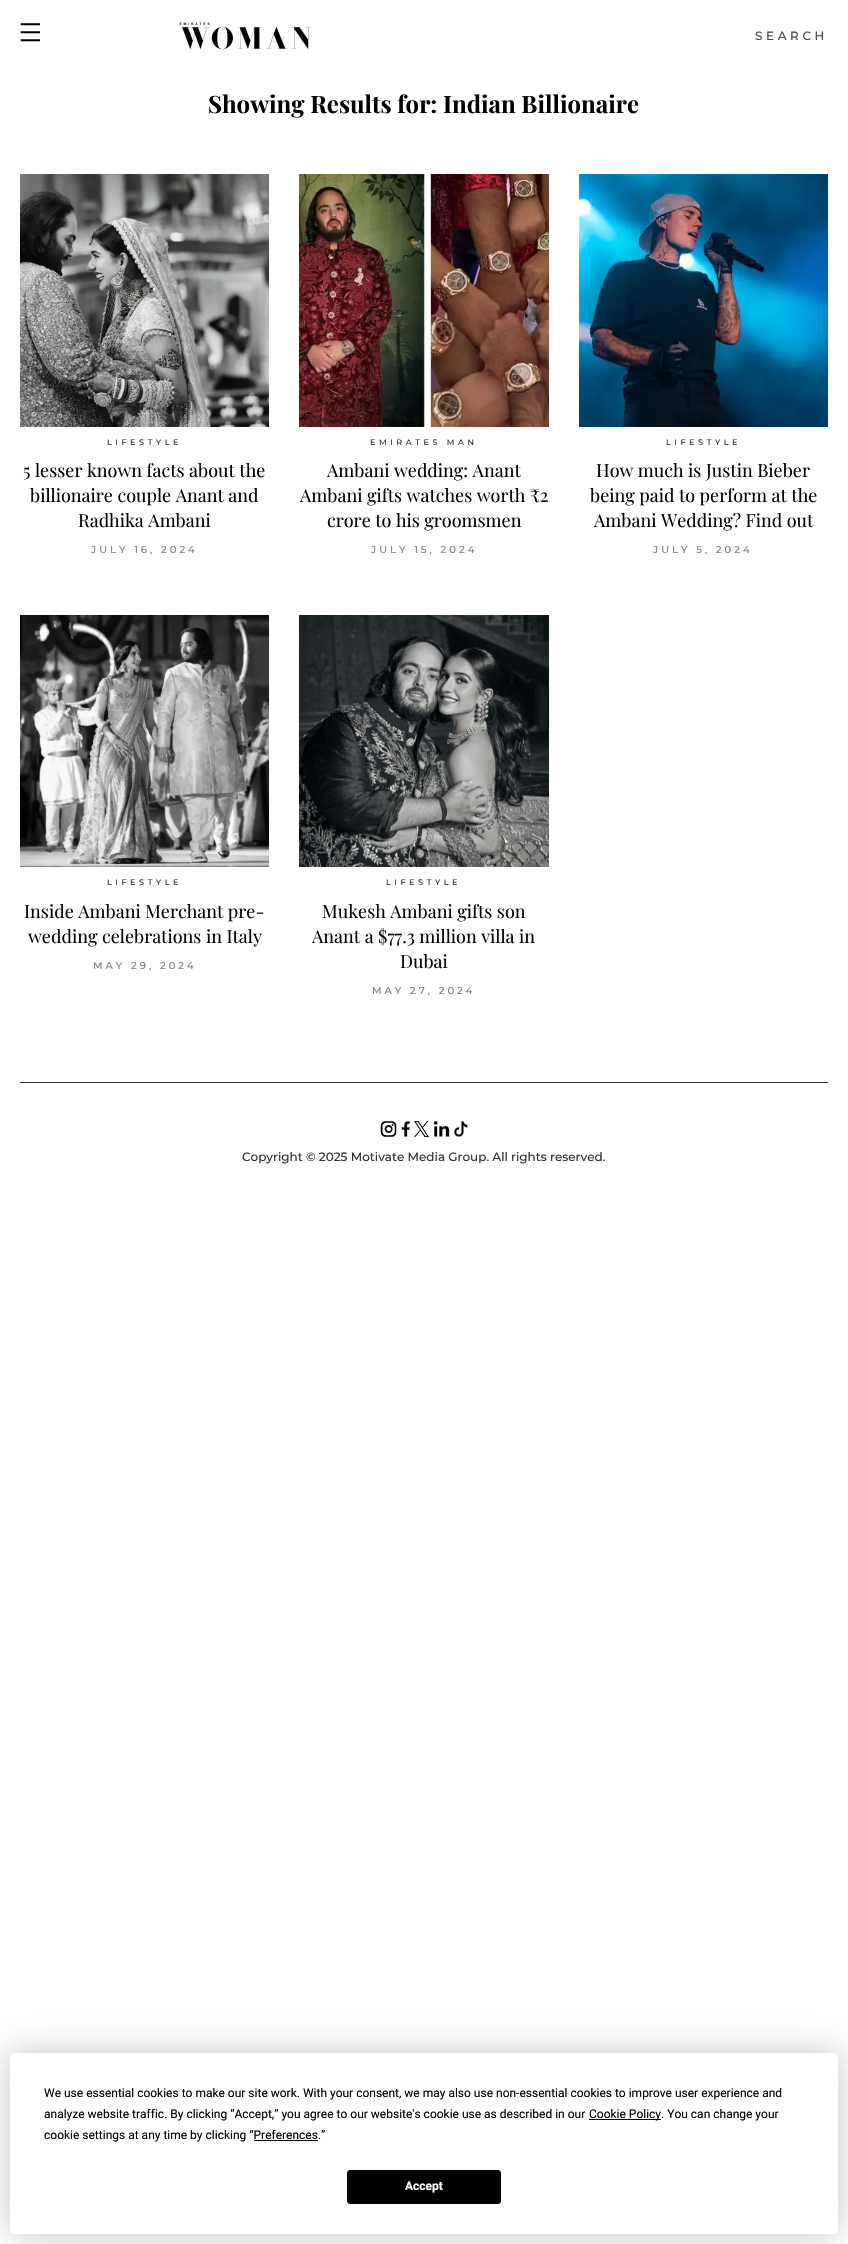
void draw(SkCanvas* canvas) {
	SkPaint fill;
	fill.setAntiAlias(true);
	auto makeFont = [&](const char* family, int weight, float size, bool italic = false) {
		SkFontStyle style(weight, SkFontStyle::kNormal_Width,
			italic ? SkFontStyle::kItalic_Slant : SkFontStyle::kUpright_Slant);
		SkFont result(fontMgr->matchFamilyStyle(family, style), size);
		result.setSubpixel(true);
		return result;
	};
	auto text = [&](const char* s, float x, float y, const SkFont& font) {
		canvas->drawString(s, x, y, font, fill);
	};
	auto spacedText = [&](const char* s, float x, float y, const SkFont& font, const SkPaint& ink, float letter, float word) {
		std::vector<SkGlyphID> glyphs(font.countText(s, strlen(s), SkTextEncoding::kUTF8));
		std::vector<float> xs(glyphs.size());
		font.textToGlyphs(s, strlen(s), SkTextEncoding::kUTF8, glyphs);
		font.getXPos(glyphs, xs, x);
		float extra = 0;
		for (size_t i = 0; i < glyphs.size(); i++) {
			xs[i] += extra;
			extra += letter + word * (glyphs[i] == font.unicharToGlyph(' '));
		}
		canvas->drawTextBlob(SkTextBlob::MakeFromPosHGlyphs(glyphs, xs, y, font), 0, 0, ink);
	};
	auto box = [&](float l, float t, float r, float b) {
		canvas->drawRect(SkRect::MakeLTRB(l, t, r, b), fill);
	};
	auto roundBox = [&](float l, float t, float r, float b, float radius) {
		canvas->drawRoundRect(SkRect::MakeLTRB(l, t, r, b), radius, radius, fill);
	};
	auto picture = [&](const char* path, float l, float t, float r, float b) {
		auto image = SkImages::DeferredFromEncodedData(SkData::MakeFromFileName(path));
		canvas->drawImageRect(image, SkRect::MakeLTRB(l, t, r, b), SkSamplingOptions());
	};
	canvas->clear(0xFFFFFFFF);
	picture("image0.png", 20, 23, 40, 42);
	picture("image1.png", 179, 22, 311, 50);
	picture("image2.png", 20, 174, 269, 427);
	picture("image3.png", 299, 174, 549, 427);
	picture("image4.png", 579, 174, 828, 427);
	picture("image5.png", 20, 615, 269, 867);
	picture("image6.png", 299, 615, 549, 867);
	fill.setColor(0xFF333333);
	box(20, 1082, 828, 1083);
	picture("image7.png", 380, 1121, 397, 1137);
	picture("image8.png", 401, 1121, 410, 1137);
	picture("image9.png", 414, 1121, 429, 1137);
	picture("image10.png", 433, 1121, 450, 1137);
	picture("image11.png", 454, 1121, 468, 1137);
	fill.setColor(0x40000000);
	fill.setMaskFilter(SkMaskFilter::MakeBlur(kNormal_SkBlurStyle, 17.5f));
	canvas->drawRoundRect(SkRect::MakeLTRB(10, 2053, 838, 2234), 5, 5, fill);
	fill.setMaskFilter(nullptr);
	fill.setColor(0xFFFFFFFF);
	roundBox(10, 2053, 838, 2234, 5);
	fill.setColor(0xFF000000);
	box(589, 2119, 661, 2120);
	box(254, 2140, 318, 2141);
	canvas->drawRoundRect(SkRect::MakeLTRB(347.5f, 2170.5f, 500.5f, 2203.5f), 2.5f, 2.5f, fill);
	fill.setStyle(SkPaint::kStroke_Style);
	fill.setStrokeWidth(1);
	canvas->drawRoundRect(SkRect::MakeLTRB(347.5f, 2170.5f, 500.5f, 2203.5f), 2.5f, 2.5f, fill);
	auto font1 = makeFont("Montserrat", 500, 12);
	fill.setStyle(SkPaint::kFill_Style);
	fill.setColor(0xFF4D4D4D);
	spacedText("SEARCH", 755, 40, font1, fill, 3.6f, 0);
	auto font2 = makeFont("Playfair Display", 700, 24);
	fill.setColor(0xFF000000);
	text("Showing Results for: Indian Billionaire", 208, 113, font2);
	auto font3 = makeFont("Montserrat", 500, 8);
	fill.setColor(0xFF333333);
	spacedText("LIFESTYLE", 107, 445, font3, fill, 3.6f, 0);
	auto font4 = makeFont("Playfair Display", 400, 18);
	fill.setColor(0xFF000000);
	text("5 lesser known facts about the", 23, 477, font4);
	text("billionaire couple Anant and", 30, 502, font4);
	text("Radhika Ambani", 78, 527, font4);
	auto font5 = makeFont("Montserrat", 500, 10);
	fill.setColor(0xFF808080);
	spacedText("JULY 16, 2024", 91, 553, font5, fill, 3, 0);
	fill.setColor(0xFF333333);
	spacedText("EMIRATES MAN", 370, 445, font3, fill, 3.6f, 0);
	fill.setColor(0xFF000000);
	text("Ambani wedding: Anant", 327, 477, font4);
	text("Ambani gifts watches worth ₹2", 300, 502, font4);
	text("crore to his groomsmen", 327, 527, font4);
	fill.setColor(0xFF808080);
	spacedText("JULY 15, 2024", 371, 553, font5, fill, 3, 0);
	fill.setColor(0xFF333333);
	spacedText("LIFESTYLE", 666, 445, font3, fill, 3.6f, 0);
	fill.setColor(0xFF000000);
	text("How much is Justin Bieber", 596, 477, font4);
	text("being paid to perform at the", 590, 502, font4);
	text("Ambani Wedding? Find out", 594, 527, font4);
	fill.setColor(0xFF808080);
	spacedText("JULY 5, 2024", 653, 553, font5, fill, 3, 0);
	fill.setColor(0xFF333333);
	spacedText("LIFESTYLE", 107, 885, font3, fill, 3.6f, 0);
	fill.setColor(0xFF000000);
	text("Inside Ambani Merchant pre-", 24, 918, font4);
	text("wedding celebrations in Italy", 28, 943, font4);
	fill.setColor(0xFF808080);
	spacedText("MAY 29, 2024", 93, 969, font5, fill, 3, 0);
	fill.setColor(0xFF333333);
	spacedText("LIFESTYLE", 386, 885, font3, fill, 3.6f, 0);
	fill.setColor(0xFF000000);
	text("Mukesh Ambani gifts son", 322, 918, font4);
	text("Anant a $77.3 million villa in", 312, 943, font4);
	text("Dubai", 400, 968, font4);
	fill.setColor(0xFF808080);
	spacedText("MAY 27, 2024", 372, 994, font5, fill, 3, 0);
	fill.setColor(0xFF333333);
	text("Copyright © 2025 Motivate Media Group. All rights reserved.", 242, 1161, font1);
	auto font6 = makeFont("Roboto", 400, 12);
	fill.setColor(0xFF000000);
	text("We use essential cookies to make our site work. With your consent, we may also use non-essential cookies to improve user experience and", 44, 2097, font6);
	text("analyze website traffic. By clicking “Accept,” you agree to our website's cookie use as described in our", 44, 2118, font6);
	text("Cookie Policy. You can change your", 589, 2118, font6);
	text("cookie settings at any time by clicking “Preferences.”", 44, 2139, font6);
	auto font7 = makeFont("Roboto", 700, 12);
	fill.setColor(0xFFFFFFFF);
	text("Accept", 405, 2190, font7);
}
